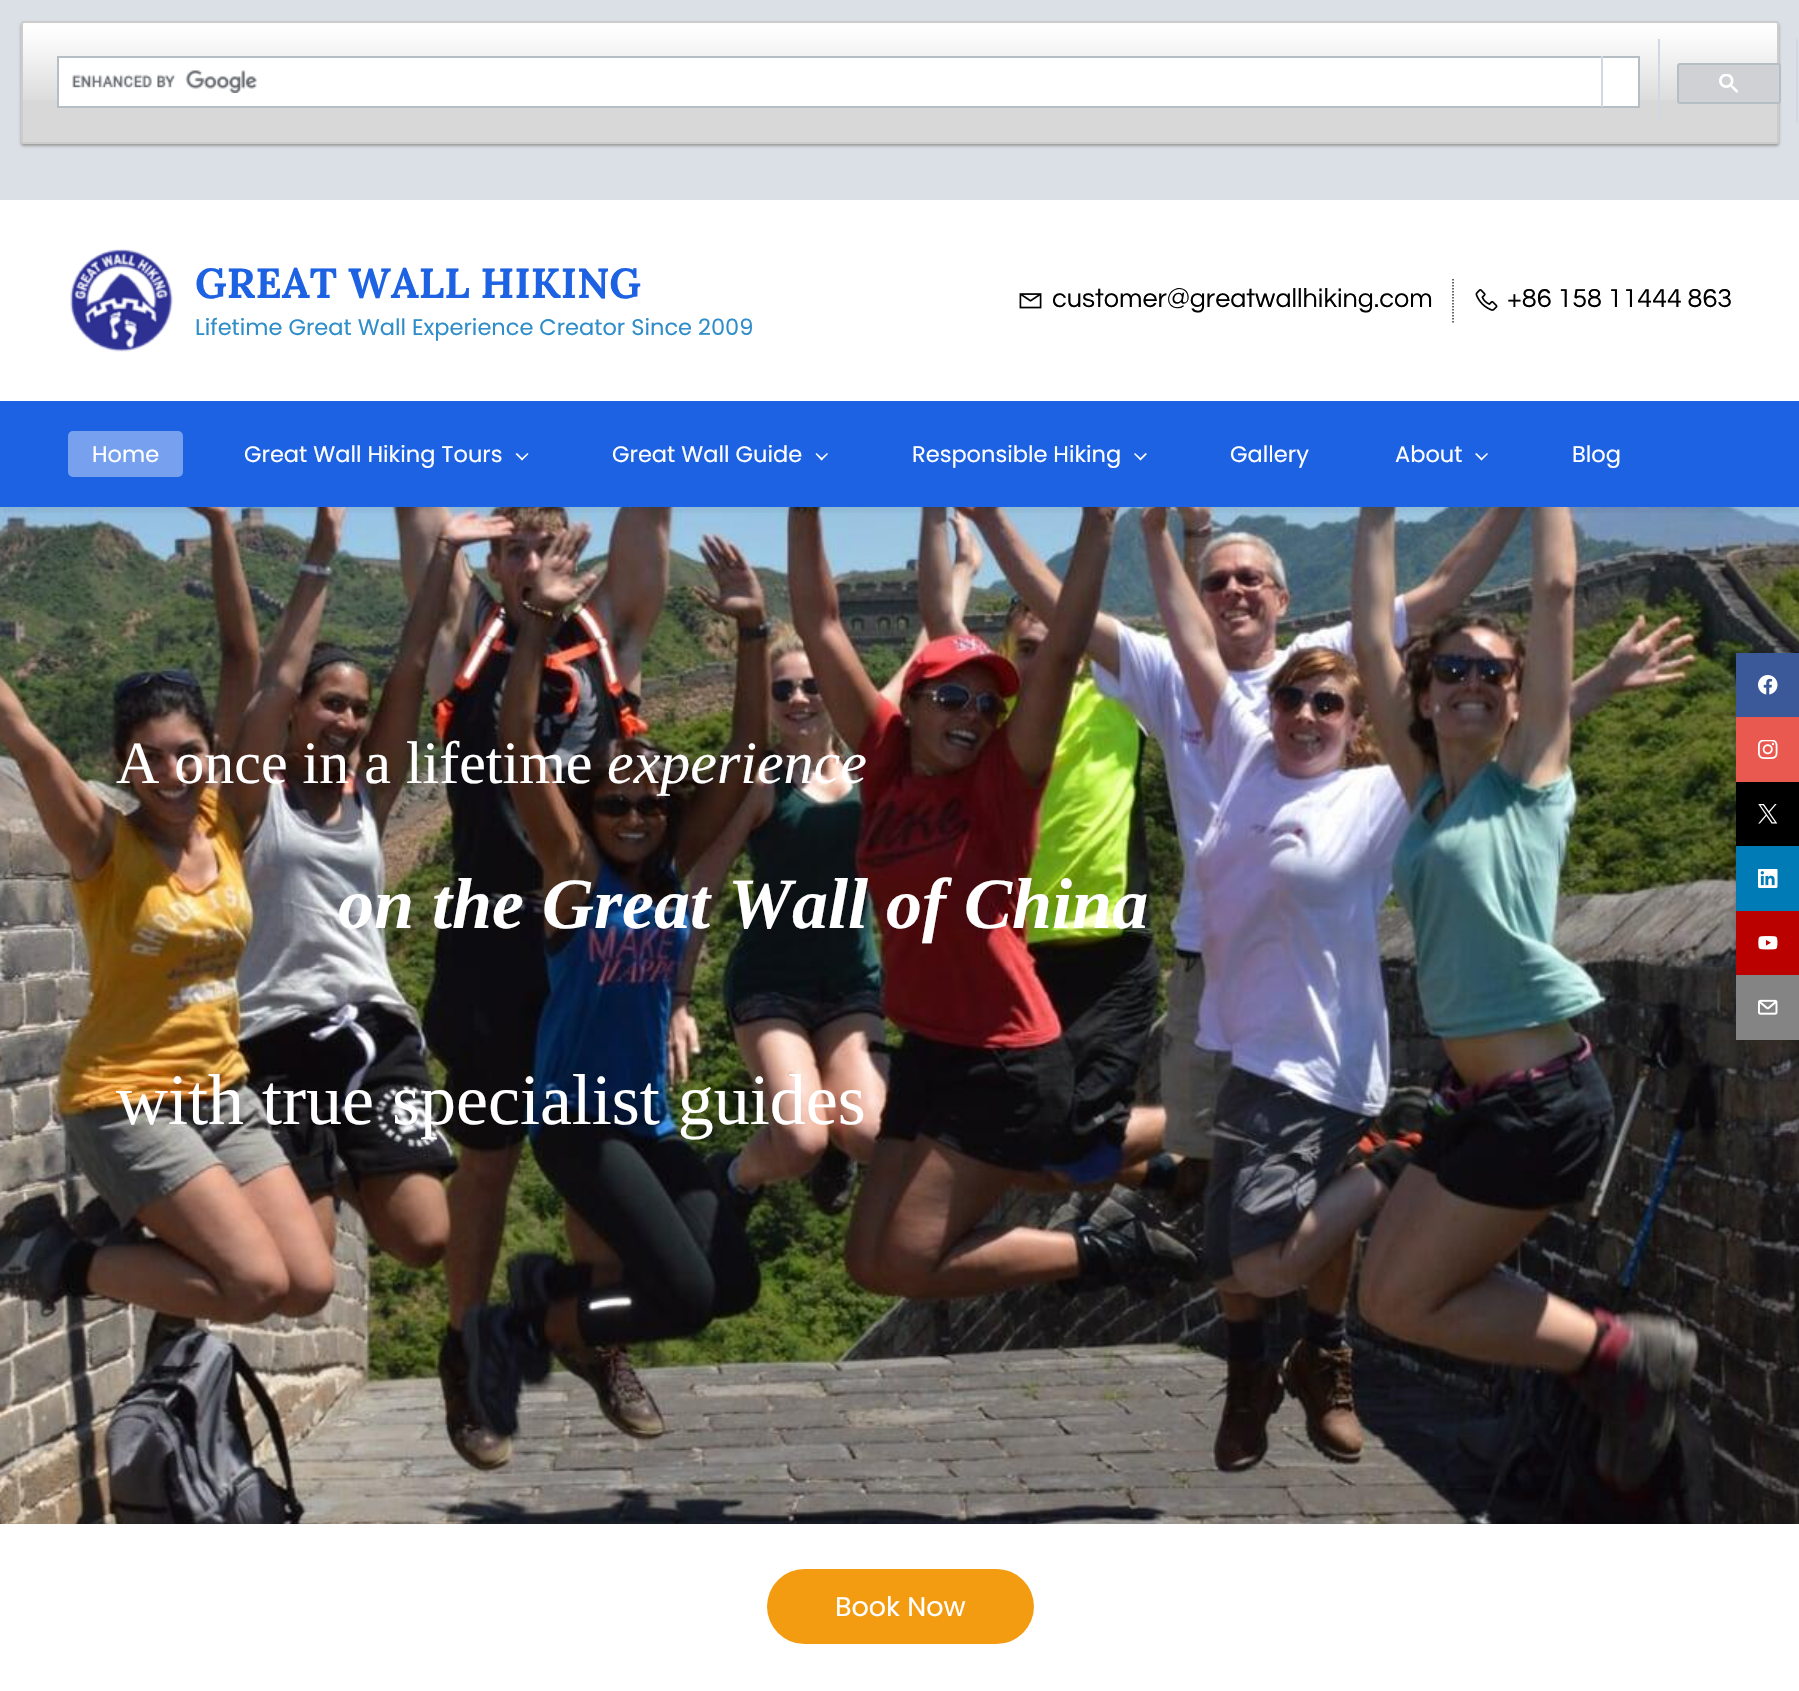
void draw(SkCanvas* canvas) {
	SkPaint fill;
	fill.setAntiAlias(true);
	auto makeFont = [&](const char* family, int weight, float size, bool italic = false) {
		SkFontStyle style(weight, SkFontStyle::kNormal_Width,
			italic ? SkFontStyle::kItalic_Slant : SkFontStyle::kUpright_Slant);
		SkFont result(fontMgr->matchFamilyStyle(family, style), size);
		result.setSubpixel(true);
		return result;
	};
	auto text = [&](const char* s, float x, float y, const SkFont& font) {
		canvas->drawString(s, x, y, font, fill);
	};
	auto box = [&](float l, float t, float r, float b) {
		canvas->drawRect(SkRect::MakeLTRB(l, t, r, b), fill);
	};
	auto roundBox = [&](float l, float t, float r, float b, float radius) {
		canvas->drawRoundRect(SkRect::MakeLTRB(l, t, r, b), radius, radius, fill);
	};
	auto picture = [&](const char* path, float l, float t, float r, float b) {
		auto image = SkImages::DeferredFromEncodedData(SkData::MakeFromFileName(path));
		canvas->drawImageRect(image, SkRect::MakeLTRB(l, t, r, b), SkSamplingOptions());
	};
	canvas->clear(0xFFFFFFFF);
	fill.setColor(0xFFDAE0E5);
	box(0, 0, 1799, 200);
	fill.setColor(0xFF999999);
	fill.setMaskFilter(SkMaskFilter::MakeBlur(kNormal_SkBlurStyle, 1.5f));
	canvas->drawRoundRect(SkRect::MakeLTRB(21, 23, 1779, 146), 3, 3, fill);
	fill.setMaskFilter(nullptr);
	fill.setColor(0xFFD8D8D8);
	roundBox(21, 21, 1779, 144, 3);
	picture("image0.png", 21, 22, 1779, 100);
	fill.setStyle(SkPaint::kStroke_Style);
	fill.setStrokeWidth(2);
	fill.setColor(0xFFCCCCCC);
	canvas->drawRoundRect(SkRect::MakeLTRB(22, 22, 1778, 143), 2, 2, fill);
	fill.setStyle(SkPaint::kFill_Style);
	fill.setColor(0xFFD2D8E2);
	box(1658, 39, 1660, 123);
	fill.setColor(0xFFFFFFFF);
	canvas->drawRect(SkRect::MakeLTRB(58, 57, 1639, 107), fill);
	fill.setStyle(SkPaint::kStroke_Style);
	fill.setColor(0xFFB6BEC5);
	canvas->drawRect(SkRect::MakeLTRB(58, 57, 1639, 107), fill);
	fill.setStyle(SkPaint::kFill_Style);
	fill.setColor(0xFFD2D8E2);
	box(1601, 56, 1603, 107);
	picture("image1.png", 72, 70, 257, 93);
	box(1796, 39, 1798, 123);
	fill.setColor(0xFFD0D1D4);
	canvas->drawRoundRect(SkRect::MakeLTRB(1678, 64, 1780, 103), 2, 2, fill);
	fill.setStyle(SkPaint::kStroke_Style);
	fill.setColor(0xFFB6BEC5);
	canvas->drawRoundRect(SkRect::MakeLTRB(1678, 64, 1780, 103), 2, 2, fill);
	picture("image2.png", 1719, 74, 1739, 93);
	picture("image12.png", 0, 507, 1799, 1524);
	canvas->save();
	canvas->clipRect(SkRect::MakeLTRB(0, 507, 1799, 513));
	fill.setStyle(SkPaint::kFill_Style);
	fill.setColor(0x0D000000);
	fill.setMaskFilter(SkMaskFilter::MakeBlur(kNormal_SkBlurStyle, 4));
	canvas->drawRect(SkRect::MakeLTRB(0, 204, 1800, 512), fill);
	fill.setMaskFilter(nullptr);
	canvas->restore();
	picture("image3.png", 70, 249, 173, 352);
	picture("image4.png", 1019, 293, 1042, 309);
	fill.setStyle(SkPaint::kStroke_Style);
	fill.setStrokeWidth(1.5f);
	fill.setColor(0xFF333333);
	fill.setPathEffect(SkDashPathEffect::Make({{1.5f, 1.5f}}, 0));
	canvas->drawPath(SkPathBuilder().moveTo(1453, 279).lineTo(1453, 322.5f).detach(), fill);
	fill.setPathEffect(nullptr);
	picture("image5.png", 1475, 289, 1498, 311);
	fill.setStyle(SkPaint::kFill_Style);
	fill.setColor(0xFF1D62E2);
	box(0, 401, 1799, 507);
	fill.setColor(0xFF77A1EE);
	roundBox(68, 431, 183, 477, 5);
	fill.setColor(0xFFFFFFFF);
	canvas->drawPath(SkPathBuilder().moveTo(528.5f, 454).lineTo(522, 460.5f).lineTo(521, 459).lineTo(527.5f, 453).close().detach(), fill);
	canvas->drawPath(SkPathBuilder().moveTo(523, 459).lineTo(522, 460.5f).lineTo(515.5f, 454).lineTo(517, 453).close().detach(), fill);
	canvas->drawPath(SkPathBuilder().moveTo(828, 454).lineTo(821.5f, 460.5f).lineTo(820.5f, 459).lineTo(827, 453).close().detach(), fill);
	canvas->drawPath(SkPathBuilder().moveTo(823, 459).lineTo(821.5f, 460.5f).lineTo(815.5f, 454).lineTo(816.5f, 453).close().detach(), fill);
	canvas->drawPath(SkPathBuilder().moveTo(1147, 454).lineTo(1140.5f, 460.5f).lineTo(1139.5f, 459).lineTo(1145.5f, 453).close().detach(), fill);
	canvas->drawPath(SkPathBuilder().moveTo(1141.5f, 459).lineTo(1140.5f, 460.5f).lineTo(1134, 454).lineTo(1135, 453).close().detach(), fill);
	canvas->drawPath(SkPathBuilder().moveTo(1488, 454).lineTo(1481.5f, 460.5f).lineTo(1480.5f, 459).lineTo(1487, 453).close().detach(), fill);
	canvas->drawPath(SkPathBuilder().moveTo(1482.5f, 459).lineTo(1481.5f, 460.5f).lineTo(1475, 454).lineTo(1476.5f, 453).close().detach(), fill);
	fill.setColor(0x36000000);
	fill.setMaskFilter(SkMaskFilter::MakeBlur(kNormal_SkBlurStyle, 3));
	canvas->drawRect(SkRect::MakeLTRB(1736, 653, 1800, 1040), fill);
	fill.setMaskFilter(nullptr);
	fill.setColor(0xFF3B5998);
	box(1736, 653, 1799, 717);
	picture("image6.png", 1758, 675, 1778, 695);
	fill.setColor(0xFFE95950);
	box(1736, 717, 1799, 782);
	picture("image7.png", 1758, 740, 1778, 759);
	fill.setColor(0xFF000000);
	box(1736, 782, 1799, 846);
	picture("image8.png", 1758, 804, 1778, 824);
	fill.setColor(0xFF007BB5);
	box(1736, 846, 1799, 911);
	picture("image9.png", 1758, 869, 1778, 888);
	fill.setColor(0xFFBB0000);
	box(1736, 911, 1799, 975);
	picture("image10.png", 1758, 936, 1778, 950);
	fill.setColor(0xFF848484);
	box(1736, 975, 1799, 1040);
	picture("image11.png", 1758, 999, 1778, 1015);
	fill.setColor(0xFFF39C12);
	roundBox(767, 1569, 1034, 1644, 37.5f);
	auto font1 = makeFont("Lora", 700, 42);
	fill.setColor(0xFF1D62E2);
	text("GREAT WALL HIKING", 195, 298, font1);
	auto font2 = makeFont("Poppins", 400, 22.5f);
	fill.setColor(0xFF2F8DC9);
	text("Lifetime Great Wall Experience Creator Since 2009", 195, 335, font2);
	auto font3 = makeFont("Questrial", 400, 27);
	fill.setColor(0xFF000000);
	text("customer@greatwallhiking.com", 1052, 307, font3);
	text("+86 158 11444 863", 1507, 307, font3);
	fill.setColor(0xFFFFFFFF);
	text("Home", 92, 462, font2);
	text("Great Wall Hiking Tours", 244, 462, font2);
	text("Great Wall Guide", 612, 462, font2);
	text("Responsible Hiking", 912, 462, font2);
	text("Gallery", 1230, 462, font2);
	text("About", 1395, 462, font2);
	text("Blog", 1572, 462, font2);
	auto font4 = makeFont("Liberation Serif", 400, 60);
	text("A once in a lifetime", 116, 783, font4);
	auto font5 = makeFont("Liberation Serif", 400, 60, true);
	text("experience", 607, 783, font5);
	auto font6 = makeFont("Liberation Serif", 700, 72, true);
	text("on the Great Wall of China", 338, 928, font6);
	auto font7 = makeFont("Liberation Serif", 400, 72);
	text("with true specialist guides", 116, 1124, font7);
	auto font8 = makeFont("Poppins", 400, 27);
	text("Book Now", 835, 1616, font8);
}
